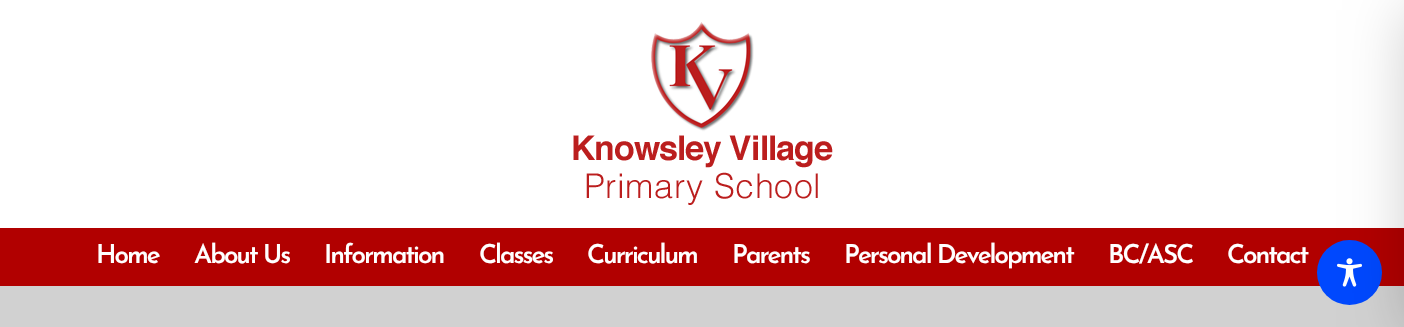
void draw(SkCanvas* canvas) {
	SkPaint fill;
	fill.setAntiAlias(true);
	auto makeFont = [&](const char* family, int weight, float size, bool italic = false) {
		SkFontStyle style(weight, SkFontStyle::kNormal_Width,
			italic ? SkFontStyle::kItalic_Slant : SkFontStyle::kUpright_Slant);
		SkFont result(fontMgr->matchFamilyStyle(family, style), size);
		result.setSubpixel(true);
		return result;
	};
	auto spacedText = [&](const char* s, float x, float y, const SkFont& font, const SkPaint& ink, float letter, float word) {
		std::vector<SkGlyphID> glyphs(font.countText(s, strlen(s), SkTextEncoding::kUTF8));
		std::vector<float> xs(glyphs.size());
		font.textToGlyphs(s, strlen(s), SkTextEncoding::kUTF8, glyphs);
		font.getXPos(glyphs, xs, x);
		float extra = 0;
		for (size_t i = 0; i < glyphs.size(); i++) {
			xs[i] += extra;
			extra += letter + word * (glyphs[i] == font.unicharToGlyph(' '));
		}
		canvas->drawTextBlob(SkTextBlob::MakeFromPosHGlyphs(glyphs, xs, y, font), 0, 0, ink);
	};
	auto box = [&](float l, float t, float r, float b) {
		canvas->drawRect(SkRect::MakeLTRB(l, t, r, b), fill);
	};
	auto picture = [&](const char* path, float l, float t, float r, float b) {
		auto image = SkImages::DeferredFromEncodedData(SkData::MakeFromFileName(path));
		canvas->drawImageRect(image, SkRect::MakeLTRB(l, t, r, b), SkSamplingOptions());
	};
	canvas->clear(0xFFFFFFFF);
	fill.setColor(0xFFB10000);
	box(0, 228, 1404, 286);
	fill.setColor(0xFFD1D1D1);
	box(0, 286, 1404, 327);
	fill.setColor(0xFF0048FE);
	canvas->drawCircle(1349.5f, 272.5f, 32.5f, fill);
	picture("image1.png", 1337, 258, 1362, 287);
	fill.setColor(0x33000000);
	fill.setMaskFilter(SkMaskFilter::MakeBlur(kNormal_SkBlurStyle, 30));
	canvas->drawRect(SkRect::MakeLTRB(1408, 10, 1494, 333), fill);
	fill.setMaskFilter(nullptr);
	picture("image0.png", 573, 22, 833, 205);
	auto font1 = makeFont("Josefin Sans", 600, 26);
	fill.setColor(0xFFFFFFFF);
	spacedText("Home", 96, 263, font1, fill, -2, 0);
	spacedText("About Us", 194, 263, font1, fill, -2, 0);
	spacedText("Information", 324, 263, font1, fill, -2, 0);
	spacedText("Classes", 479, 263, font1, fill, -2, 0);
	spacedText("Curriculum", 587, 263, font1, fill, -2, 0);
	spacedText("Parents", 732, 263, font1, fill, -2, 0);
	spacedText("Personal Development", 844, 263, font1, fill, -2, 0);
	spacedText("BC/ASC", 1108, 263, font1, fill, -2, 0);
	spacedText("Contact", 1227, 263, font1, fill, -2, 0);
}
